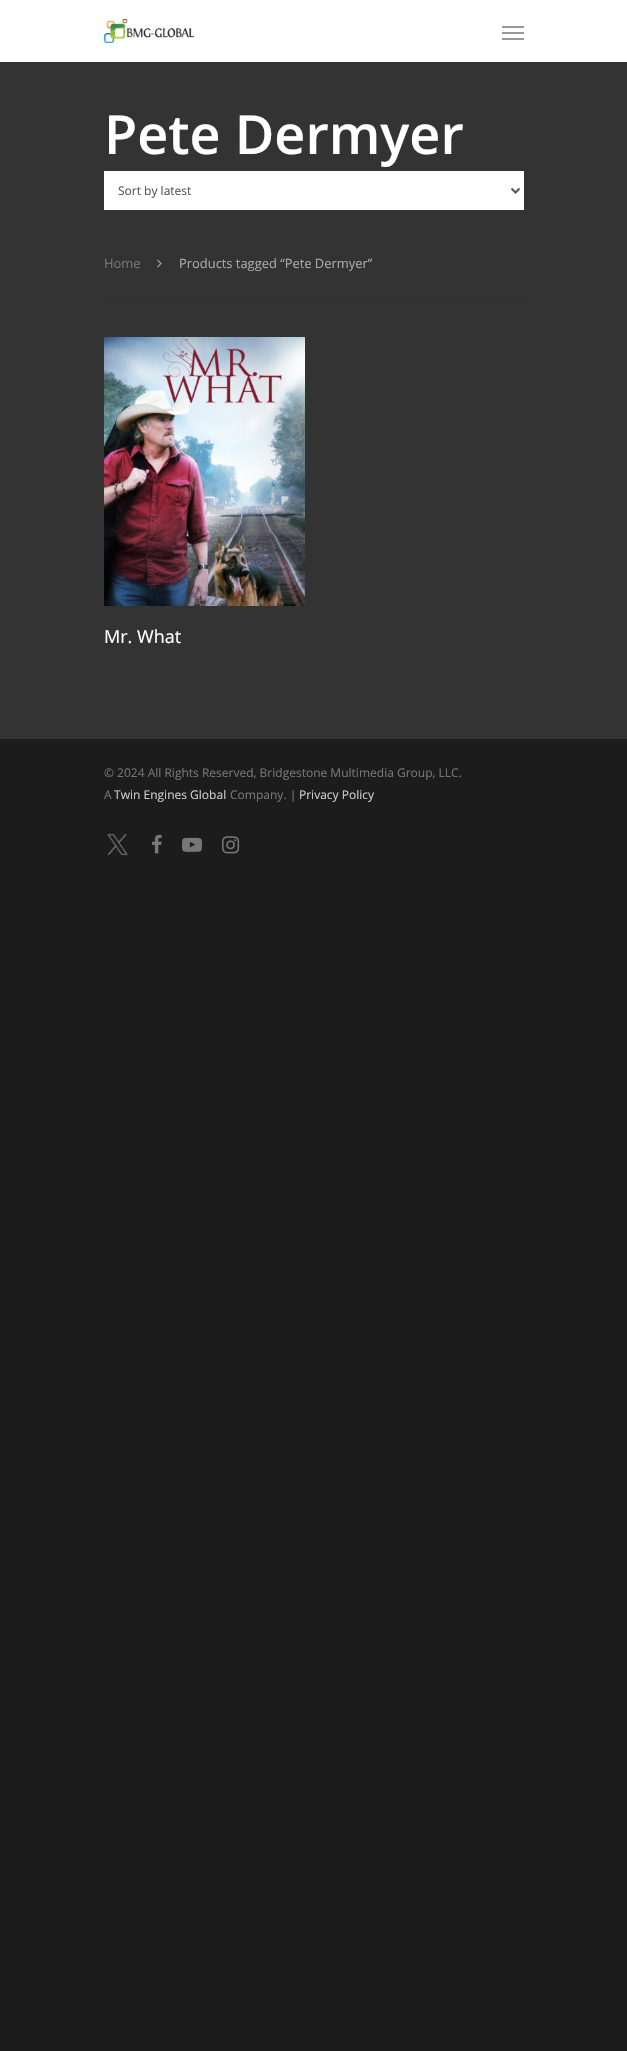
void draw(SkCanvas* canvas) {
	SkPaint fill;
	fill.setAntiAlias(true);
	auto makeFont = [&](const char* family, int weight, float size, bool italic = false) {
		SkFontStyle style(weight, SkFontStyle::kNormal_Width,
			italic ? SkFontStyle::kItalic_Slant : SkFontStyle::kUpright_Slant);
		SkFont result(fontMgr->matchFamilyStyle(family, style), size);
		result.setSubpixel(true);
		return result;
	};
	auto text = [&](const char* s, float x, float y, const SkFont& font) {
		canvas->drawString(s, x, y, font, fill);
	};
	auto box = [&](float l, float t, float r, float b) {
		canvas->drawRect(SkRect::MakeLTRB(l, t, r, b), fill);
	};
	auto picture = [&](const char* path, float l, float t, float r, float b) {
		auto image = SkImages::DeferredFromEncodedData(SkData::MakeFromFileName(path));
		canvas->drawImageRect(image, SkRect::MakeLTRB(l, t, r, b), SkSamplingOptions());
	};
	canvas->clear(0xFF1C1C1C);
	fill.setColor(0xFFFFFFFF);
	box(0, 0, 627, 62);
	picture("image0.png", 103, 19, 194, 43);
	fill.setColor(0xFF999999);
	box(502, 26, 524, 28);
	box(502, 38, 524, 40);
	box(502, 32, 524, 34);
	fill.setColor(0xFF333333);
	box(0, 62, 627, 739);
	fill.setColor(0xFFFFFFFF);
	box(104, 171, 524, 210);
	fill.setStyle(SkPaint::kStroke_Style);
	fill.setStrokeWidth(2);
	fill.setColor(0xFF555555);
	canvas->drawPath(SkPathBuilder().moveTo(511.5f, 188.5f).lineTo(515.5f, 192.5f).lineTo(519.5f, 188.5f).detach(), fill);
	fill.setStyle(SkPaint::kFill_Style);
	fill.setColor(0xFF2F2F2F);
	box(104, 296, 524, 297);
	picture("image1.png", 157, 259, 162, 268);
	picture("image2.png", 104, 337, 305, 606);
	picture("image3.png", 107, 833, 128, 856);
	picture("image4.png", 152, 834, 162, 854);
	picture("image5.png", 182, 837, 202, 852);
	picture("image6.png", 222, 836, 240, 854);
	auto font1 = makeFont("Open Sans", 600, 54);
	fill.setColor(0xFFFFFFFF);
	text("Pete Dermyer", 104, 154, font1);
	auto font2 = makeFont("Open Sans", 400, 12);
	fill.setColor(0xFF555555);
	text("Sort by latest", 118, 195, font2);
	auto font3 = makeFont("Open Sans", 400, 12.9f);
	fill.setColor(0xFF777777);
	text("Home", 104, 268, font3);
	fill.setColor(0xFFAAAAAA);
	text("Products tagged “Pete Dermyer”", 179, 268, font3);
	auto font4 = makeFont("Open Sans", 400, 18);
	fill.setColor(0xFFFFFFFF);
	text("Mr. What", 104, 643, font4);
	fill.setColor(0xFF777777);
	text("© 2024 All Rights Reserved, Bridgestone Multimedia Group, LLC.", 104, 777, font2);
	text("A", 104, 799, font2);
	fill.setColor(0xFFCCCCCC);
	text("Twin Engines Global", 114, 799, font2);
	fill.setColor(0xFF777777);
	text("Company. |", 230, 799, font2);
	fill.setColor(0xFFCCCCCC);
	text("Privacy Policy", 299, 799, font2);
}
